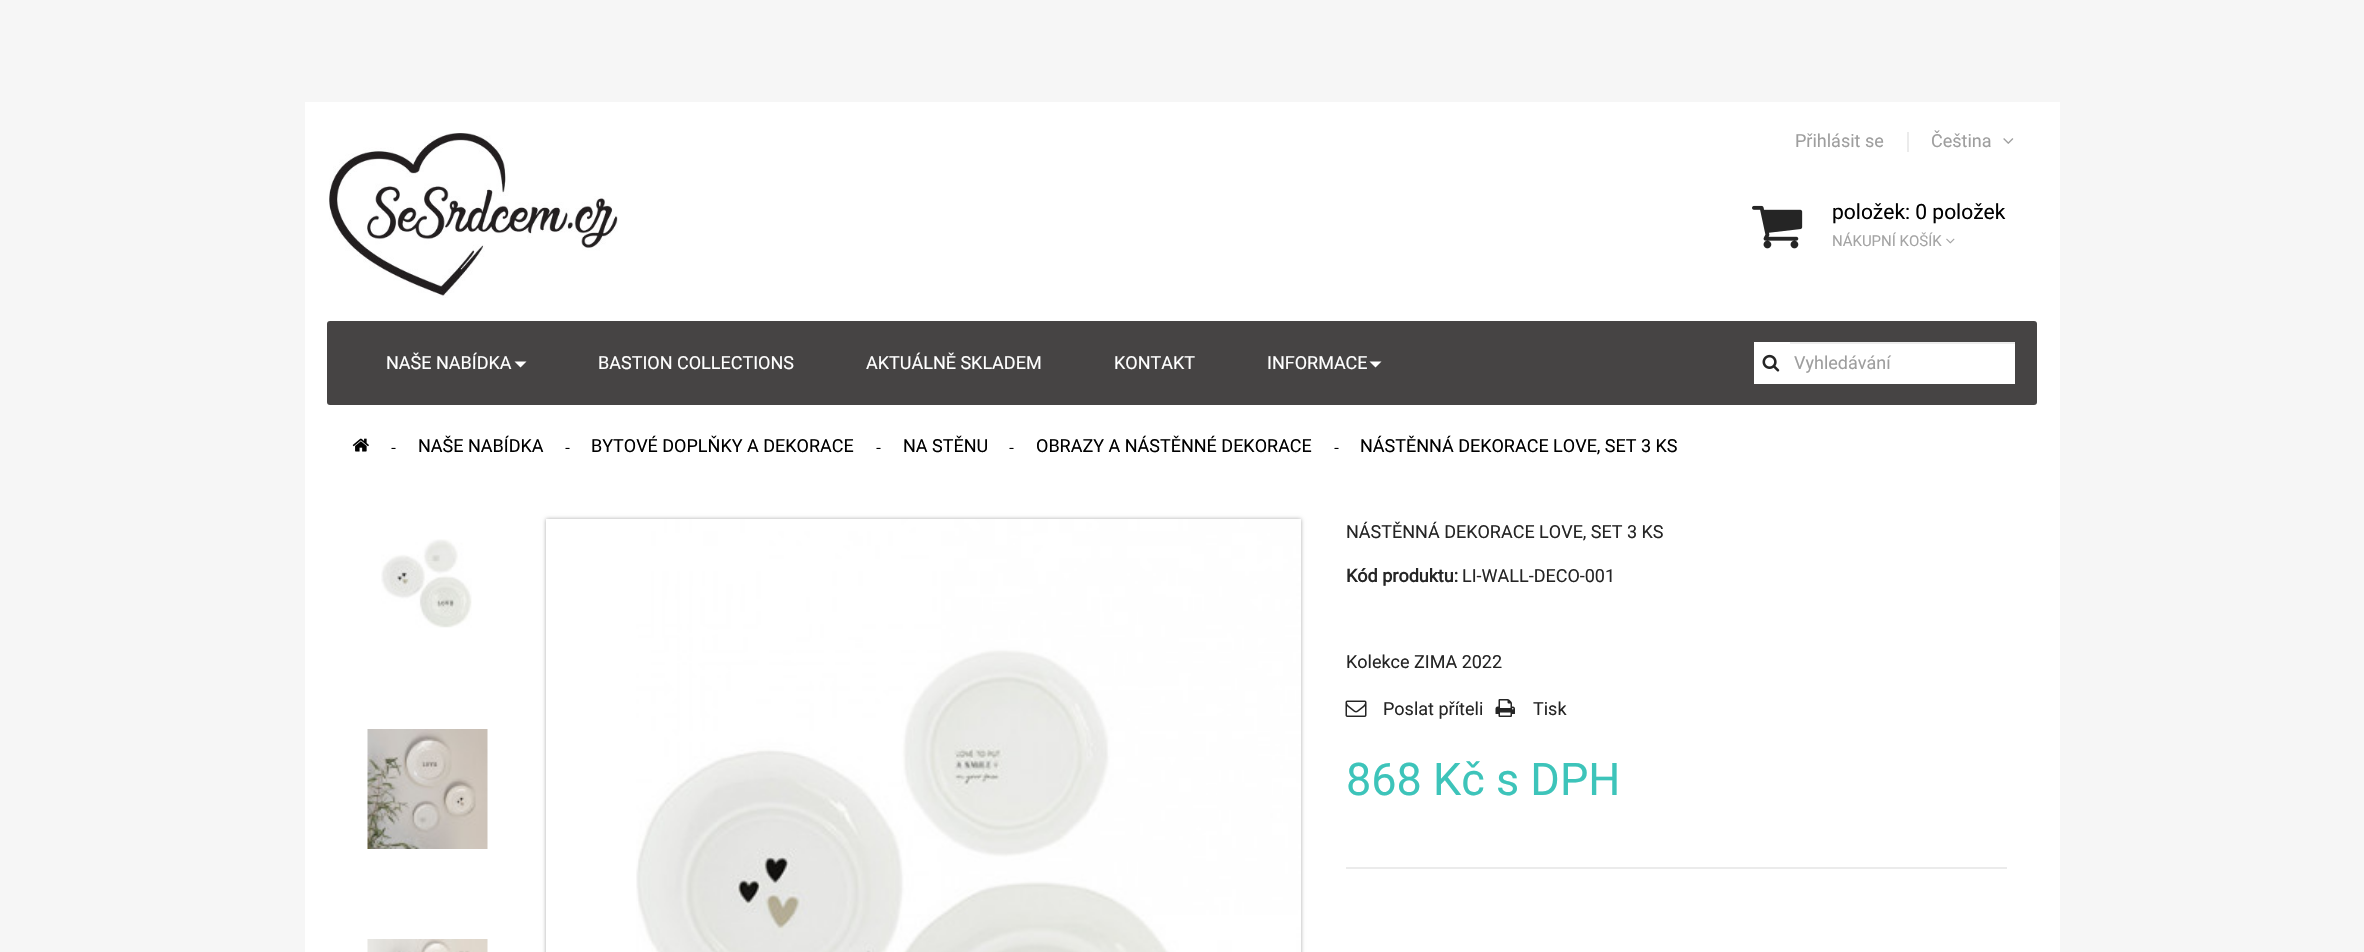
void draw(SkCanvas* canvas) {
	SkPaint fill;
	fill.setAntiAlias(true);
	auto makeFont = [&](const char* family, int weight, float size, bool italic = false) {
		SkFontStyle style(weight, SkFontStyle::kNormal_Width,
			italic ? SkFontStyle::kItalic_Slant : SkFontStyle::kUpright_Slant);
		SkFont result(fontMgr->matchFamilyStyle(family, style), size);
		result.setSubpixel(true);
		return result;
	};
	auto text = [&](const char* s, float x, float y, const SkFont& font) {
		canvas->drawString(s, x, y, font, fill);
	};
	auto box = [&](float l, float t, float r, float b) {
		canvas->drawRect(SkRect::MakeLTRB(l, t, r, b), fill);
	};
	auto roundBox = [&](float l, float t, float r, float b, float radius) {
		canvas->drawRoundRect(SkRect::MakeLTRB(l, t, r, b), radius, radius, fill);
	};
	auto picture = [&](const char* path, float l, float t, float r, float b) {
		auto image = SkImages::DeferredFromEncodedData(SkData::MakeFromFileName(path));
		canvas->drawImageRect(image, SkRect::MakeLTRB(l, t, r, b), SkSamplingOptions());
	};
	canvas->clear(0xFFF6F6F6);
	fill.setColor(0xFFFFFFFF);
	box(305, 102, 2060, 952);
	picture("image0.png", 329, 133, 618, 298);
	fill.setColor(0xFFEBEBEB);
	box(1907, 132, 1909, 152);
	picture("image1.png", 2003, 138, 2014, 144);
	picture("image2.png", 1752, 205, 1803, 249);
	picture("image3.png", 1946, 238, 1955, 244);
	fill.setColor(0xFF464444);
	roundBox(327, 321, 2037, 405, 3);
	fill.setColor(0xFFFFFFFF);
	canvas->drawPath(SkPathBuilder().moveTo(514.5f, 361.5f).lineTo(526.5f, 361.5f).lineTo(520.5f, 367.5f).close().detach(), fill);
	canvas->drawPath(SkPathBuilder().moveTo(1369.5f, 361.5f).lineTo(1381.5f, 361.5f).lineTo(1375.5f, 367.5f).close().detach(), fill);
	box(1754, 342, 2015, 384);
	picture("image4.png", 1762, 354, 1780, 372);
	fill.setColor(0xFFECECEC);
	box(1790, 342, 2015, 344);
	picture("image5.png", 352, 438, 369, 452);
	picture("image6.png", 381, 539, 472, 628);
	picture("image7.png", 367, 729, 488, 849);
	picture("image8.png", 367, 939, 488, 952);
	canvas->save();
	canvas->clipPath(SkPathBuilder(SkPathFillType::kEvenOdd).moveTo(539, 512).lineTo(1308, 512).lineTo(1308, 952).lineTo(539, 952).close().moveTo(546, 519).lineTo(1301, 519).lineTo(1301, 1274).lineTo(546, 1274).close().detach(), true);
	fill.setColor(0xFFAAAAAA);
	fill.setMaskFilter(SkMaskFilter::MakeBlur(kNormal_SkBlurStyle, 2));
	canvas->drawRect(SkRect::MakeLTRB(546, 519, 1301, 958), fill);
	fill.setMaskFilter(nullptr);
	canvas->restore();
	picture("image9.png", 636, 519, 1301, 952);
	picture("image10.png", 1345, 700, 1367, 717);
	picture("image11.png", 1495, 699, 1515, 717);
	fill.setColor(0xFFEBEBEB);
	box(1346, 867, 2007, 869);
	auto font1 = makeFont("Roboto", 400, 18);
	fill.setColor(0xFF9E9E9E);
	text("Přihlásit se", 1795, 147, font1);
	text("Čeština", 1931, 147, font1);
	auto font2 = makeFont("Roboto", 400, 21);
	fill.setColor(0xFF000000);
	text("položek: 0 položek", 1832, 219, font2);
	auto font3 = makeFont("Roboto", 400, 15);
	fill.setColor(0xFFA4A4A4);
	text("NÁKUPNÍ KOŠÍK", 1832, 246, font3);
	fill.setColor(0xFFFFFFFF);
	text("NAŠE NABÍDKA", 386, 369, font1);
	text("BASTION COLLECTIONS", 598, 369, font1);
	text("AKTUÁLNĚ SKLADEM", 866, 369, font1);
	text("KONTAKT", 1114, 369, font1);
	text("INFORMACE", 1267, 369, font1);
	fill.setColor(0xFF9E9E9E);
	text("Vyhledávání", 1794, 369, font1);
	auto font4 = makeFont("Liberation Serif", 400, 15);
	fill.setColor(0xFF000000);
	text("-", 391, 452, font4);
	text("NAŠE NABÍDKA", 418, 452, font1);
	text("-", 565, 452, font4);
	text("BYTOVÉ DOPLŇKY A DEKORACE", 591, 452, font1);
	text("-", 876, 452, font4);
	text("NA STĚNU", 903, 452, font1);
	text("-", 1009, 452, font4);
	text("OBRAZY A NÁSTĚNNÉ DEKORACE", 1036, 452, font1);
	text("-", 1334, 452, font4);
	text("NÁSTĚNNÁ DEKORACE LOVE, SET 3 KS", 1360, 452, font1);
	fill.setColor(0xFF252525);
	text("NÁSTĚNNÁ DEKORACE LOVE, SET 3 KS", 1346, 538, font1);
	auto font5 = makeFont("Roboto", 700, 18);
	text("Kód produktu:", 1346, 582, font5);
	text("LI-WALL-DECO-001", 1462, 582, font1);
	text("Kolekce ZIMA 2022", 1346, 668, font1);
	text("Poslat příteli", 1383, 715, font1);
	text("Tisk", 1533, 715, font1);
	auto font6 = makeFont("Roboto", 400, 45);
	fill.setColor(0xFF3DC4BA);
	text("868 Kč s DPH", 1346, 795, font6);
}
